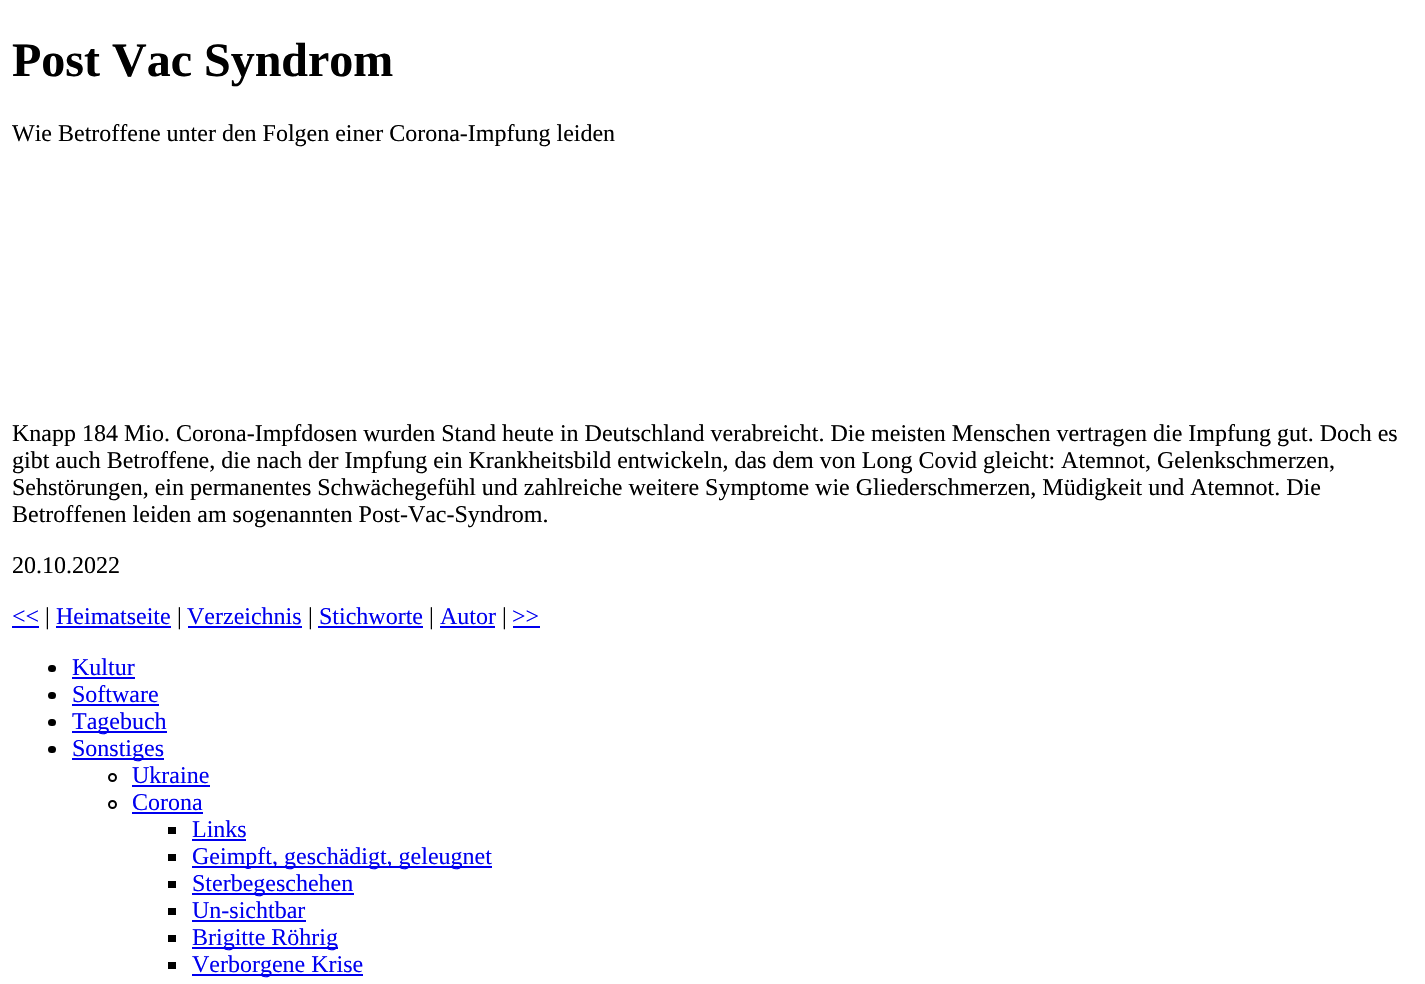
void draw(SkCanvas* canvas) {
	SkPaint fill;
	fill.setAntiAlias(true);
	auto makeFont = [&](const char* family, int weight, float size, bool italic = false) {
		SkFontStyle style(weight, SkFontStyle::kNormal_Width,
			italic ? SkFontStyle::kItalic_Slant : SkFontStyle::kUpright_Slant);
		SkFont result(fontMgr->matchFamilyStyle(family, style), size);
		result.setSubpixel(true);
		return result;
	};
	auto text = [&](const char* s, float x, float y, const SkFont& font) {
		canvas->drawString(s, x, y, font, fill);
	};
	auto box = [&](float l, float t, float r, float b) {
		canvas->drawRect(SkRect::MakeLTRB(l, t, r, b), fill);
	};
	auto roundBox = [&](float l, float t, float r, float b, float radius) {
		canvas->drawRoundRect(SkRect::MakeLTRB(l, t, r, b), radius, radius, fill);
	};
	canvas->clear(0xFFFFFFFF);
	fill.setColor(0xFF0000EE);
	box(12, 626, 39, 628);
	box(56, 626, 171, 628);
	box(188, 626, 302, 628);
	box(318, 626, 423, 628);
	box(440, 626, 495, 628);
	box(513, 626, 540, 628);
	fill.setColor(0xFF000000);
	roundBox(48, 665, 56, 672, 3.5f);
	fill.setColor(0xFF0000EE);
	box(72, 677, 135, 679);
	fill.setColor(0xFF000000);
	roundBox(48, 692, 56, 699, 3.5f);
	fill.setColor(0xFF0000EE);
	box(72, 704, 159, 706);
	fill.setColor(0xFF000000);
	roundBox(48, 719, 56, 726, 3.5f);
	fill.setColor(0xFF0000EE);
	box(72, 731, 167, 733);
	fill.setColor(0xFF000000);
	roundBox(48, 746, 56, 753, 3.5f);
	fill.setColor(0xFF0000EE);
	box(72, 758, 164, 760);
	fill.setStyle(SkPaint::kStroke_Style);
	fill.setStrokeWidth(2);
	fill.setColor(0xFF000000);
	canvas->drawCircle(112.5f, 777.5f, 3.5f, fill);
	fill.setStyle(SkPaint::kFill_Style);
	fill.setColor(0xFF0000EE);
	box(132, 785, 210, 787);
	fill.setStyle(SkPaint::kStroke_Style);
	fill.setColor(0xFF000000);
	canvas->drawCircle(112.5f, 804.5f, 3.5f, fill);
	fill.setStyle(SkPaint::kFill_Style);
	fill.setColor(0xFF0000EE);
	box(132, 812, 203, 814);
	fill.setColor(0xFF000000);
	box(168, 827, 176, 834);
	fill.setColor(0xFF0000EE);
	box(192, 839, 246, 841);
	fill.setColor(0xFF000000);
	box(168, 854, 176, 861);
	fill.setColor(0xFF0000EE);
	box(192, 866, 492, 868);
	fill.setColor(0xFF000000);
	box(168, 881, 176, 888);
	fill.setColor(0xFF0000EE);
	box(192, 893, 354, 895);
	fill.setColor(0xFF000000);
	box(168, 908, 176, 915);
	fill.setColor(0xFF0000EE);
	box(192, 920, 306, 922);
	fill.setColor(0xFF000000);
	box(168, 935, 176, 942);
	fill.setColor(0xFF0000EE);
	box(192, 947, 338, 949);
	fill.setColor(0xFF000000);
	box(168, 962, 176, 969);
	fill.setColor(0xFF0000EE);
	box(192, 974, 363, 976);
	auto font1 = makeFont("Liberation Serif", 700, 48);
	fill.setColor(0xFF000000);
	text("Post Vac Syndrom", 12, 76, font1);
	auto font2 = makeFont("Liberation Serif", 400, 24);
	text("Wie Betroffene unter den Folgen einer Corona-Impfung leiden", 12, 141, font2);
	text("Knapp 184 Mio. Corona-Impfdosen wurden Stand heute in Deutschland verabreicht. Die meisten Menschen vertragen die Impfung gut. Doch es", 12, 441, font2);
	text("gibt auch Betroffene, die nach der Impfung ein Krankheitsbild entwickeln, das dem von Long Covid gleicht: Atemnot, Gelenkschmerzen,", 12, 468, font2);
	text("Sehstörungen, ein permanentes Schwächegefühl und zahlreiche weitere Symptome wie Gliederschmerzen, Müdigkeit und Atemnot. Die", 12, 495, font2);
	text("Betroffenen leiden am sogenannten Post-Vac-Syndrom.", 12, 522, font2);
	text("20.10.2022", 12, 573, font2);
	fill.setColor(0xFF0000EE);
	text("<<", 12, 624, font2);
	fill.setColor(0xFF000000);
	text("|", 45, 624, font2);
	fill.setColor(0xFF0000EE);
	text("Heimatseite", 56, 624, font2);
	fill.setColor(0xFF000000);
	text("|", 177, 624, font2);
	fill.setColor(0xFF0000EE);
	text("Verzeichnis", 187, 624, font2);
	fill.setColor(0xFF000000);
	text("|", 308, 624, font2);
	fill.setColor(0xFF0000EE);
	text("Stichworte", 319, 624, font2);
	fill.setColor(0xFF000000);
	text("|", 429, 624, font2);
	fill.setColor(0xFF0000EE);
	text("Autor", 440, 624, font2);
	fill.setColor(0xFF000000);
	text("|", 502, 624, font2);
	fill.setColor(0xFF0000EE);
	text(">>", 512, 624, font2);
	text("Kultur", 72, 675, font2);
	text("Software", 72, 702, font2);
	text("Tagebuch", 72, 729, font2);
	text("Sonstiges", 72, 756, font2);
	text("Ukraine", 132, 783, font2);
	text("Corona", 132, 810, font2);
	text("Links", 192, 837, font2);
	text("Geimpft, geschädigt, geleugnet", 192, 864, font2);
	text("Sterbegeschehen", 192, 891, font2);
	text("Un-sichtbar", 192, 918, font2);
	text("Brigitte Röhrig", 192, 945, font2);
	text("Verborgene Krise", 192, 972, font2);
}
